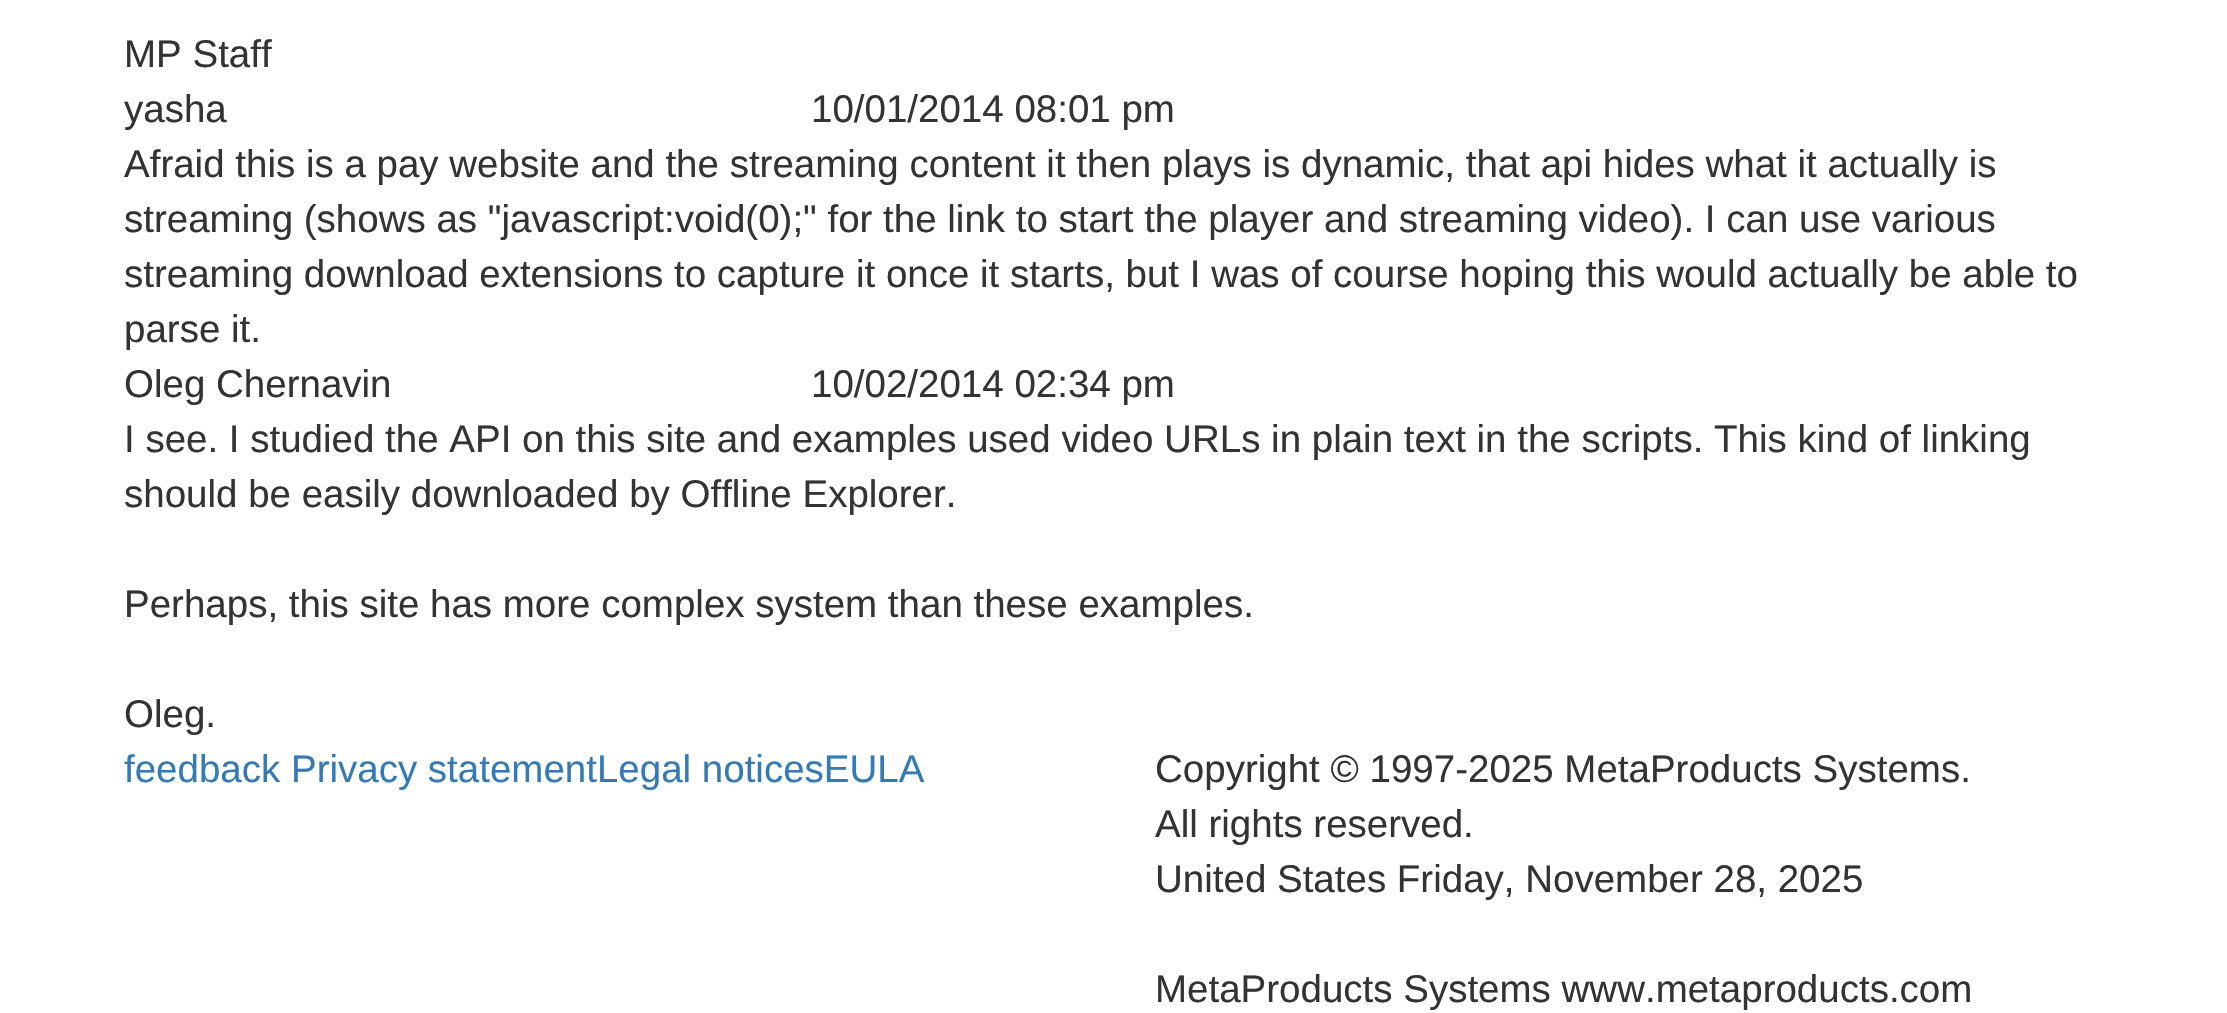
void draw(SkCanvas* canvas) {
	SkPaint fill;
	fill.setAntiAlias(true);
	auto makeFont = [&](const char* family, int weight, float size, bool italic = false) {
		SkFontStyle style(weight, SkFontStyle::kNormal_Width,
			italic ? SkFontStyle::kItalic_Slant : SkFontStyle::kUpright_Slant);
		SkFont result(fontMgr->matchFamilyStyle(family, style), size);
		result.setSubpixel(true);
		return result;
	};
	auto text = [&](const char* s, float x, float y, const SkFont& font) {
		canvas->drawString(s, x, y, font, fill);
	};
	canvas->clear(0xFFFFFFFF);
	auto font1 = makeFont("Liberation Sans", 400, 38.5f);
	fill.setColor(0xFF333333);
	text("MP Staff", 124, 67, font1);
	text("yasha", 124, 122, font1);
	text("10/01/2014 08:01 pm", 811, 122, font1);
	text("Afraid this is a pay website and the streaming content it then plays is dynamic, that api hides what it actually is", 124, 177, font1);
	text("streaming (shows as \"javascript:void(0);\" for the link to start the player and streaming video). I can use various", 124, 232, font1);
	text("streaming download extensions to capture it once it starts, but I was of course hoping this would actually be able to", 124, 287, font1);
	text("parse it.", 124, 342, font1);
	text("Oleg Chernavin", 124, 397, font1);
	text("10/02/2014 02:34 pm", 811, 397, font1);
	text("I see. I studied the API on this site and examples used video URLs in plain text in the scripts. This kind of linking", 124, 452, font1);
	text("should be easily downloaded by Offline Explorer.", 124, 507, font1);
	text("Perhaps, this site has more complex system than these examples.", 124, 617, font1);
	text("Oleg.", 124, 727, font1);
	fill.setColor(0xFF337AB7);
	text("feedback Privacy statementLegal noticesEULA", 124, 782, font1);
	fill.setColor(0xFF333333);
	text("Copyright © 1997-2025 MetaProducts Systems.", 1155, 782, font1);
	text("All rights reserved.", 1155, 837, font1);
	text("United States Friday, November 28, 2025", 1155, 892, font1);
	text("MetaProducts Systems www.metaproducts.com", 1155, 1002, font1);
}
